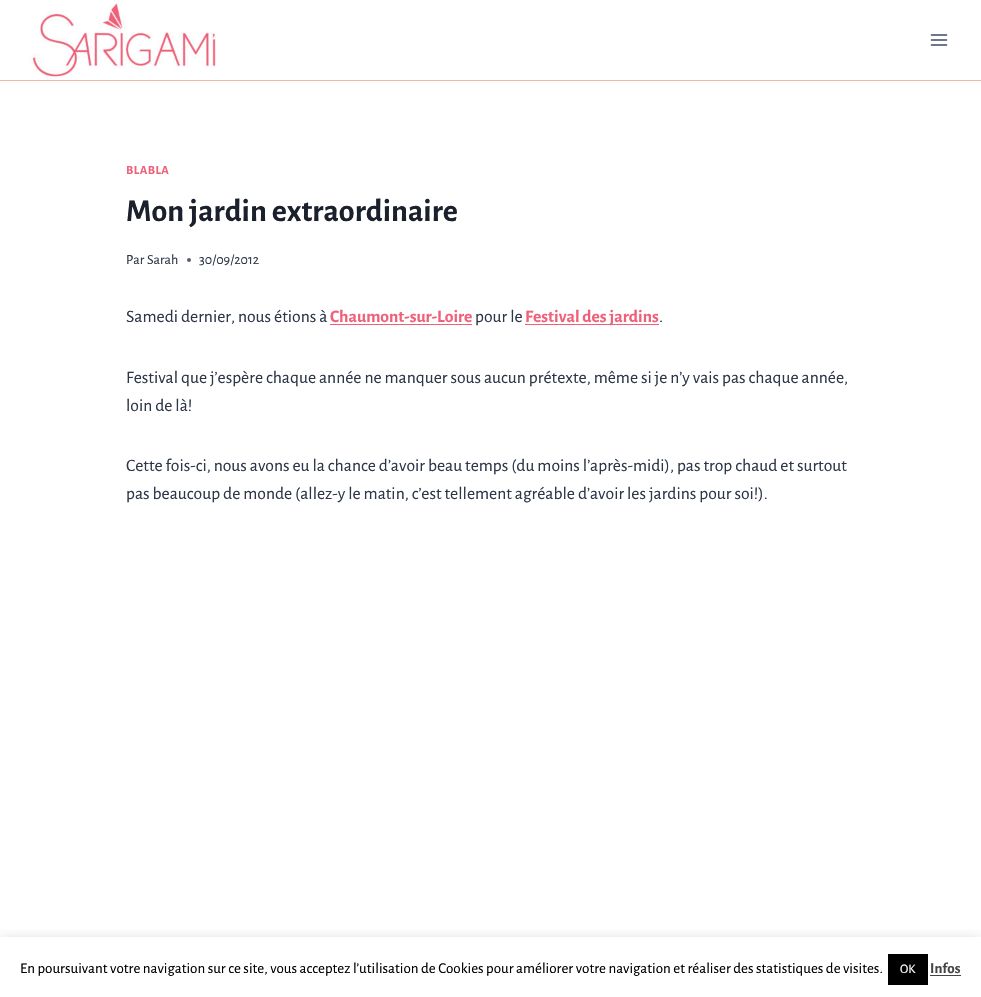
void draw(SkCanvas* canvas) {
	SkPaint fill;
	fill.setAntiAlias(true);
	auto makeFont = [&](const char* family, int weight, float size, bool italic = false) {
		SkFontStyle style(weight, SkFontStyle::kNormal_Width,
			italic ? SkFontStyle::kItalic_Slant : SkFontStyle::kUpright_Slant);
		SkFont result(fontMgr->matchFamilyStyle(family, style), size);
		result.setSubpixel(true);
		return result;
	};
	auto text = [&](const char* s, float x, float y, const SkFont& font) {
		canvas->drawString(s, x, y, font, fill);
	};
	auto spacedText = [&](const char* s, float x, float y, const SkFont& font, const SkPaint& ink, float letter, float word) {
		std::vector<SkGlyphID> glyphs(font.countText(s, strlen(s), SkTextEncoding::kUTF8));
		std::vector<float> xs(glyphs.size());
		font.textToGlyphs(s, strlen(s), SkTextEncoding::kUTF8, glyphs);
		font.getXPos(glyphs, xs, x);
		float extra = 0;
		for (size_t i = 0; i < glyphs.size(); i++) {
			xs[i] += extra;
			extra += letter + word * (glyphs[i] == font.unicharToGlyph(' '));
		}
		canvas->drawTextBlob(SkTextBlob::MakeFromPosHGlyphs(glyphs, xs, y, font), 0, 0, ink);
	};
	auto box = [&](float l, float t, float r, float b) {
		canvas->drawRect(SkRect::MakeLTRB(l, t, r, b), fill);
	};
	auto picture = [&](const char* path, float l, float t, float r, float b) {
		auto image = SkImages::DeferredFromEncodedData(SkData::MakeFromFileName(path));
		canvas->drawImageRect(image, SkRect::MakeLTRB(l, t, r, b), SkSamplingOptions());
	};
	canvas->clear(0xFFFFFFFF);
	fill.setColor(0xFFECBAA8);
	box(0, 80, 981, 81);
	picture("image0.png", 29, 0, 216, 80);
	picture("image1.png", 930, 34, 948, 46);
	fill.setColor(0xFF575F6D);
	canvas->drawCircle(189, 260, 2, fill);
	fill.setColor(0xFFEF6079);
	box(330, 324, 472, 325);
	box(525, 324, 659, 325);
	canvas->save();
	canvas->clipRect(SkRect::MakeLTRB(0, 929, 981, 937));
	fill.setColor(0x4DACABAB);
	fill.setMaskFilter(SkMaskFilter::MakeBlur(kNormal_SkBlurStyle, 5));
	canvas->drawRect(SkRect::MakeLTRB(0, 936, 981, 996), fill);
	fill.setMaskFilter(nullptr);
	canvas->restore();
	fill.setColor(0xFF000000);
	box(888, 954, 928, 985);
	fill.setColor(0xFF444444);
	box(930, 975, 961, 976);
	auto font1 = makeFont("Alegreya Sans", 700, 12.5f);
	fill.setColor(0xFFEF6079);
	spacedText("BLABLA", 126, 174, font1, fill, 0.5f, 0);
	auto font2 = makeFont("Alegreya Sans", 700, 32);
	fill.setColor(0xFF1A202C);
	text("Mon jardin extraordinaire", 126, 221, font2);
	auto font3 = makeFont("Alegreya Sans", 400, 14);
	fill.setColor(0xFF2D3748);
	text("Par", 126, 264, font3);
	text("Sarah", 147, 264, font3);
	text("30/09/2012", 199, 264, font3);
	auto font4 = makeFont("Alegreya Sans", 400, 17.6f);
	text("Samedi dernier, nous étions à", 126, 322, font4);
	auto font5 = makeFont("Alegreya Sans", 700, 17.6f);
	fill.setColor(0xFFEF6079);
	text("Chaumont-sur-Loire", 330, 322, font5);
	fill.setColor(0xFF2D3748);
	text("pour le", 475, 322, font4);
	fill.setColor(0xFFEF6079);
	text("Festival des jardins", 525, 322, font5);
	fill.setColor(0xFF2D3748);
	text(".", 659, 322, font4);
	text("Festival que j’espère chaque année ne manquer sous aucun prétexte, même si je n’y vais pas chaque année,", 126, 383, font4);
	text("loin de là!", 126, 411, font4);
	text("Cette fois-ci, nous avons eu la chance d’avoir beau temps (du moins l’après-midi), pas trop chaud et surtout", 126, 471, font4);
	text("pas beaucoup de monde (allez-y le matin, c’est tellement agréable d’avoir les jardins pour soi!).", 126, 499, font4);
	auto font6 = makeFont("Alegreya Sans", 400, 15);
	fill.setColor(0xFF000000);
	text("En poursuivant votre navigation sur ce site, vous acceptez l’utilisation de Cookies pour améliorer votre navigation et réaliser des statistiques de visites.", 20, 973, font6);
	auto font7 = makeFont("Alegreya Sans", 400, 13);
	fill.setColor(0xFFFFFFFF);
	text("OK", 900, 973, font7);
	auto font8 = makeFont("Alegreya Sans", 700, 15);
	fill.setColor(0xFF444444);
	text("Infos", 930, 973, font8);
}
